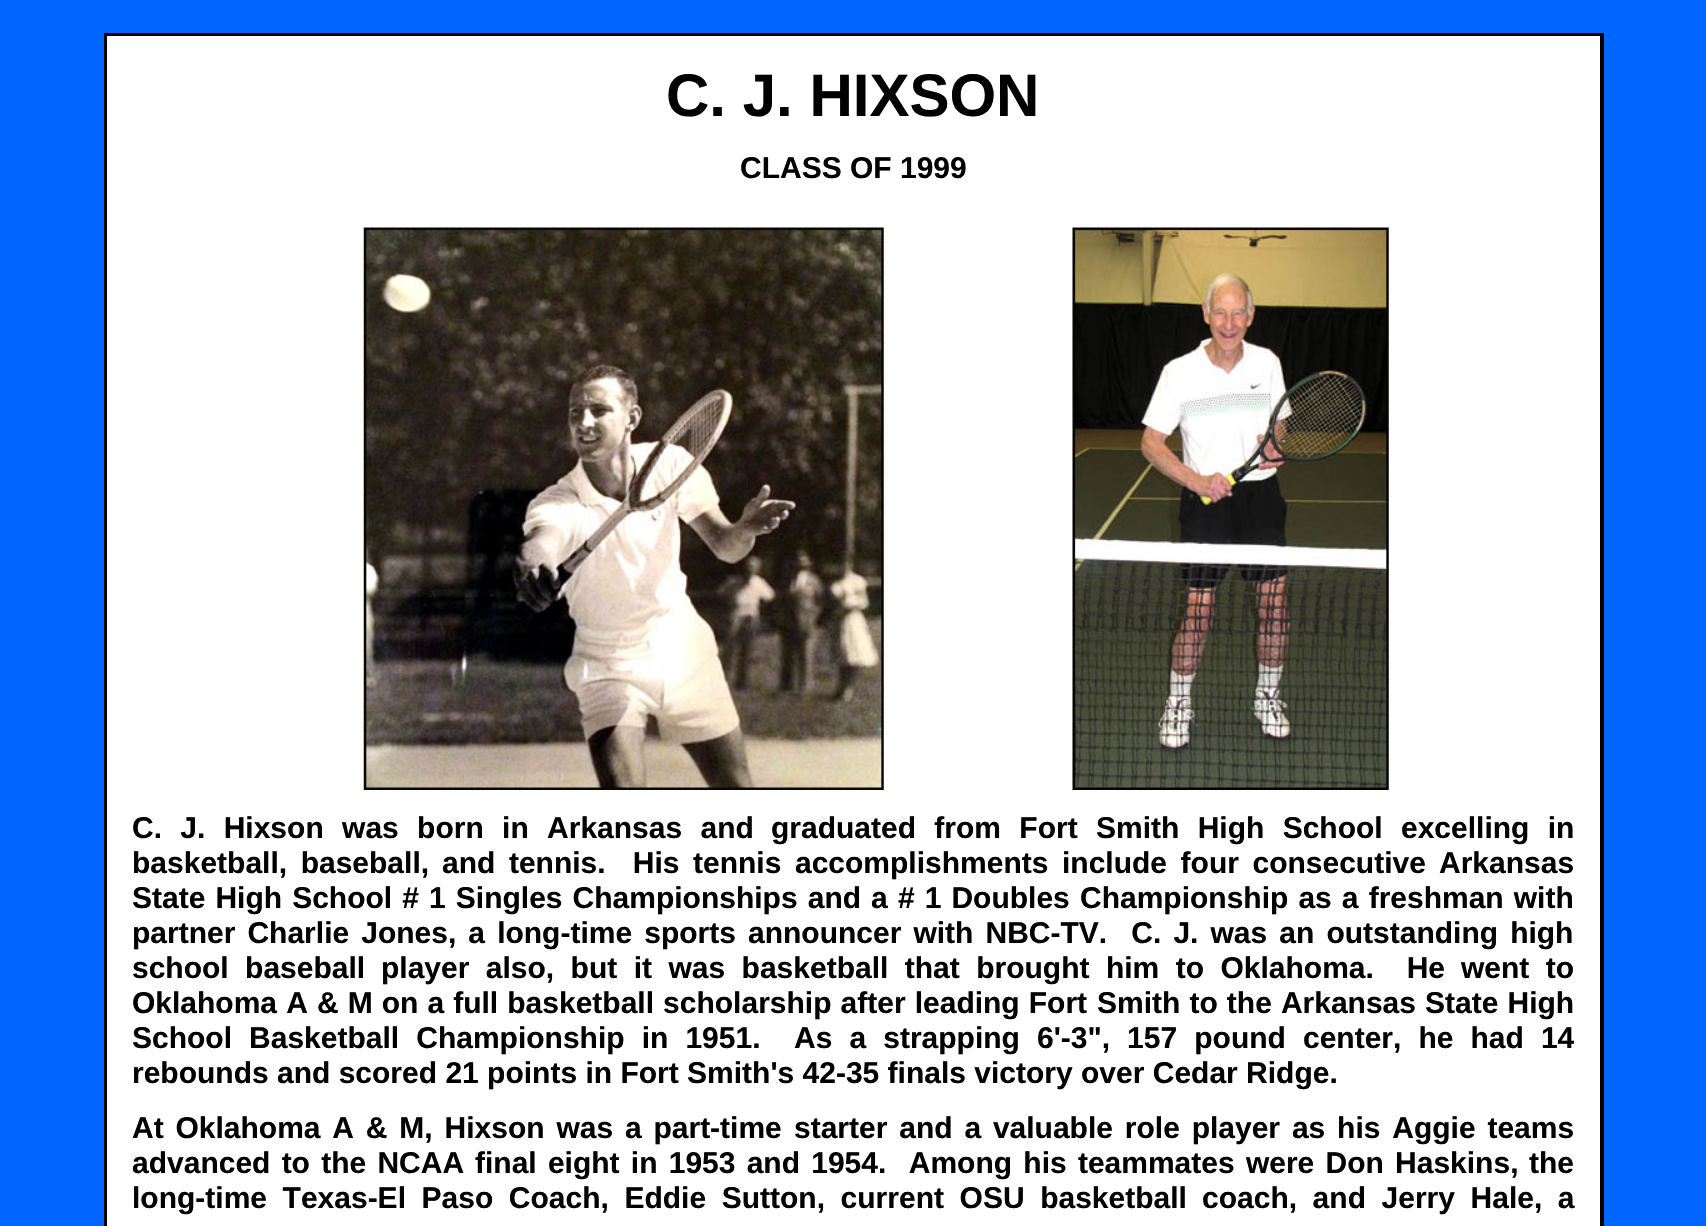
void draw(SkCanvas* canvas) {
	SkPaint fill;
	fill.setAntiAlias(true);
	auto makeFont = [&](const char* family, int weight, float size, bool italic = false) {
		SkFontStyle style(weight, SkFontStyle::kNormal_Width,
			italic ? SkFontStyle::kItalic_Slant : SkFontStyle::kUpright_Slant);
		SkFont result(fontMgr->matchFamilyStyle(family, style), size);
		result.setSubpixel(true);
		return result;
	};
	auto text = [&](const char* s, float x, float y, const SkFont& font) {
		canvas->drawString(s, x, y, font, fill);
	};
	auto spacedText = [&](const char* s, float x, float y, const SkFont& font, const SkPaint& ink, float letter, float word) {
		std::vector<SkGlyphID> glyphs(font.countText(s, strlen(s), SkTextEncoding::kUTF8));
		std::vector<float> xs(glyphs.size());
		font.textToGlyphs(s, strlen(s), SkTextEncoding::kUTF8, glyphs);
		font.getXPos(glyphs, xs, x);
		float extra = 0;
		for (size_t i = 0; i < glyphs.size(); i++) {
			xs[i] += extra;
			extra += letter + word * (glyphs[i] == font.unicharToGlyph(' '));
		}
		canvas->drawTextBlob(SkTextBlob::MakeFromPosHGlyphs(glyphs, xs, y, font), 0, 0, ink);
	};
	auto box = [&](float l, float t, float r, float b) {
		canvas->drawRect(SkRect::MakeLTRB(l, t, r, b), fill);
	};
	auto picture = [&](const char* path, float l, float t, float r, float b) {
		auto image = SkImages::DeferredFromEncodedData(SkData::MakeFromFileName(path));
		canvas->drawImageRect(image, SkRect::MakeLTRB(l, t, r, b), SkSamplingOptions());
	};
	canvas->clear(0xFF0066FF);
	fill.setColor(0xFFFFFFFF);
	box(107, 36, 1600, 1226);
	fill.setStyle(SkPaint::kStroke_Style);
	fill.setStrokeWidth(3);
	fill.setColor(0xFF000000);
	canvas->drawRect(SkRect::MakeLTRB(105.5f, 34.5f, 1602.5f, 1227.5f), fill);
	fill.setStrokeWidth(1);
	canvas->drawRect(SkRect::MakeLTRB(106.5f, 35.5f, 1600.5f, 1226.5f), fill);
	picture("image0.png", 363, 227, 884, 790);
	picture("image1.png", 1072, 227, 1389, 790);
	auto font1 = makeFont("Liberation Sans", 700, 60);
	fill.setStyle(SkPaint::kFill_Style);
	text("C. J. HIXSON", 666, 116, font1);
	auto font2 = makeFont("Liberation Sans", 700, 30);
	text("CLASS OF 1999", 740, 178, font2);
	spacedText("C. J. Hixson was born in Arkansas and", 132, 838, font2, fill, 0, 10);
	spacedText("graduated from Fort Smith High School excelling in", 771, 838, font2, fill, 0, 10);
	spacedText("basketball, baseball,", 132, 873, font2, fill, 0, 5.25f);
	spacedText("and tennis.  His tennis accomplishments include four consecutive", 442, 873, font2, fill, 0, 5.25f);
	text("Arkansas", 1439, 873, font2);
	spacedText("State High School # 1 Singles Championships and a # 1 Doubles", 132, 908, font2, fill, 0, 1.75f);
	spacedText("Championship as a freshman with", 1080, 908, font2, fill, 0, 1.75f);
	spacedText("partner Charlie Jones, a long-time sports", 132, 943, font2, fill, 0, 3.75f);
	spacedText("announcer with NBC-TV.  C. J. was an outstanding high", 748, 943, font2, fill, 0, 3.75f);
	spacedText("school baseball", 132, 978, font2, fill, 0, 8.1f);
	spacedText("player also, but it was basketball that brought him to Oklahoma.  He", 381, 978, font2, fill, 0, 8.1f);
	spacedText("went to", 1461, 978, font2, fill, 0, 8.1f);
	spacedText("Oklahoma A & M on a full basketball scholarship after leading Fort", 132, 1013, font2, fill, 0, 0.75f);
	spacedText("Smith to the Arkansas State High", 1097, 1013, font2, fill, 0, 0.75f);
	spacedText("School Basketball Championship in 1951.", 132, 1048, font2, fill, 0, 8.75f);
	spacedText("As a strapping 6'-3\", 157 pound center, he had 14", 794, 1048, font2, fill, 0, 8.75f);
	text("rebounds and scored 21 points in Fort Smith's 42-35 finals victory over Cedar Ridge.", 132, 1083, font2);
	spacedText("At Oklahoma A & M, Hixson was a part-time", 132, 1138, font2, fill, 0, 3.5f);
	spacedText("starter and a valuable role player as his Aggie teams", 794, 1138, font2, fill, 0, 3.5f);
	spacedText("advanced to the NCAA", 132, 1173, font2, fill, 0, 2.9f);
	spacedText("final eight in 1953 and 1954.  Among his teammates were Don Haskins,", 475, 1173, font2, fill, 0, 2.9f);
	text("the", 1529, 1173, font2);
	spacedText("long-time Texas-El Paso Coach, Eddie Sutton, current OSU basketball", 132, 1208, font2, fill, 0, 7.25f);
	spacedText("coach, and Jerry Hale, a", 1202, 1208, font2, fill, 0, 7.25f);
}
